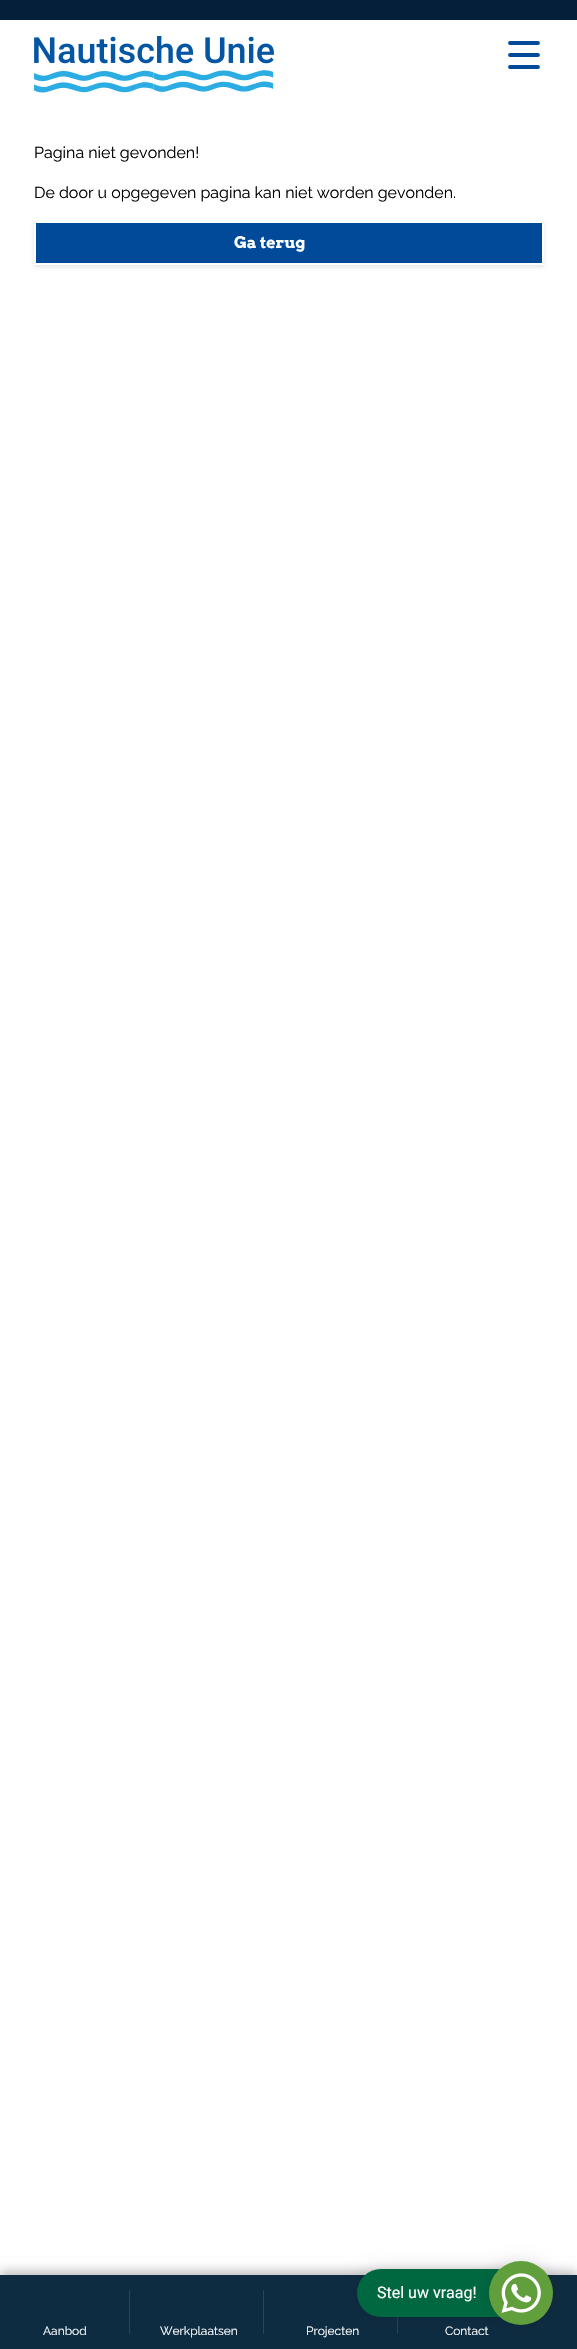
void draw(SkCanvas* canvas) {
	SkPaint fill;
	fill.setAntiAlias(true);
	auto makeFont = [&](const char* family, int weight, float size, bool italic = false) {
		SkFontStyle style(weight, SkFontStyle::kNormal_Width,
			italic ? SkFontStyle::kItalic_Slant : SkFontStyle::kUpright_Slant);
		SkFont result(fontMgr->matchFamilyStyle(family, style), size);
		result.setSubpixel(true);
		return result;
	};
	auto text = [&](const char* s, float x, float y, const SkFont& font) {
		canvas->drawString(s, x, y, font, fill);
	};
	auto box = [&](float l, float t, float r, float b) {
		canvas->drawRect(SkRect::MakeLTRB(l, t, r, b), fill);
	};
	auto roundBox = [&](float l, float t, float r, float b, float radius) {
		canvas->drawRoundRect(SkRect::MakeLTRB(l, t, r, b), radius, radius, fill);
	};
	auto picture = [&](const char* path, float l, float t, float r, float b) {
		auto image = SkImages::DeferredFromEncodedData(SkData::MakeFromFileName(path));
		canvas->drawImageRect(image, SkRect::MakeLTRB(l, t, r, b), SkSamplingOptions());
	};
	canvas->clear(0xFFFFFFFF);
	fill.setColor(0xFF051E39);
	box(0, 0, 577, 20);
	picture("image0.png", 34, 36, 274, 93);
	fill.setStyle(SkPaint::kStroke_Style);
	fill.setStrokeWidth(3.8f);
	fill.setStrokeCap(SkPaint::kRound_Cap);
	fill.setColor(0xFF004A99);
	canvas->drawPath(SkPathBuilder().moveTo(510, 43).lineTo(538, 43).moveTo(510, 55).lineTo(538, 55).moveTo(510, 67).lineTo(538, 67).detach(), fill);
	fill.setStyle(SkPaint::kFill_Style);
	fill.setColor(0x1A000000);
	fill.setMaskFilter(SkMaskFilter::MakeBlur(kNormal_SkBlurStyle, 2));
	canvas->drawRect(SkRect::MakeLTRB(34, 223, 544, 267), fill);
	fill.setMaskFilter(nullptr);
	fill.setColor(0xFF004A99);
	canvas->drawRect(SkRect::MakeLTRB(35, 222, 543, 264), fill);
	fill.setStyle(SkPaint::kStroke_Style);
	fill.setStrokeWidth(2);
	fill.setStrokeCap(SkPaint::kButt_Cap);
	fill.setColor(0xFFFFFFFF);
	canvas->drawRect(SkRect::MakeLTRB(35, 222, 543, 264), fill);
	fill.setStyle(SkPaint::kFill_Style);
	fill.setColor(0x40000000);
	fill.setMaskFilter(SkMaskFilter::MakeBlur(kNormal_SkBlurStyle, 5));
	canvas->drawRect(SkRect::MakeLTRB(0, 2271, 577, 2345), fill);
	fill.setMaskFilter(nullptr);
	fill.setColor(0xFF0E2C41);
	box(0, 2275, 577, 2349);
	fill.setColor(0xFF004A99);
	box(397, 2317, 398, 2334);
	fill.setColor(0x1F000000);
	fill.setMaskFilter(SkMaskFilter::MakeBlur(kNormal_SkBlurStyle, 8));
	canvas->drawRoundRect(SkRect::MakeLTRB(357, 2269, 521, 2317), 24, 24, fill);
	fill.setMaskFilter(nullptr);
	fill.setColor(0xFF006840);
	roundBox(357, 2269, 521, 2317, 24);
	fill.setColor(0x1F000000);
	fill.setMaskFilter(SkMaskFilter::MakeBlur(kNormal_SkBlurStyle, 8));
	canvas->drawRoundRect(SkRect::MakeLTRB(489, 2261, 553, 2325), 32, 32, fill);
	fill.setMaskFilter(nullptr);
	fill.setColor(0xFF619E3C);
	canvas->drawCircle(521, 2293, 32, fill);
	picture("image1.png", 501, 2273, 541, 2313);
	fill.setColor(0xFF004A99);
	box(129, 2290, 130, 2334);
	box(263, 2290, 264, 2334);
	auto font1 = makeFont("Raleway", 100, 16);
	fill.setColor(0xFF000000);
	text("Pagina niet gevonden!", 34, 158, font1);
	text("De door u opgegeven pagina kan niet worden gevonden.", 34, 198, font1);
	auto font2 = makeFont("Arvo", 700, 16);
	fill.setColor(0xFFFFFFFF);
	text("Ga terug", 234, 248, font2);
	auto font3 = makeFont("Roboto", 400, 16);
	text("Stel uw vraag!", 377, 2298, font3);
	auto font4 = makeFont("Raleway", 100, 12);
	text("Aanbod", 43, 2335, font4);
	text("Werkplaatsen", 160, 2335, font4);
	text("Projecten", 306, 2335, font4);
	text("Contact", 445, 2335, font4);
}
